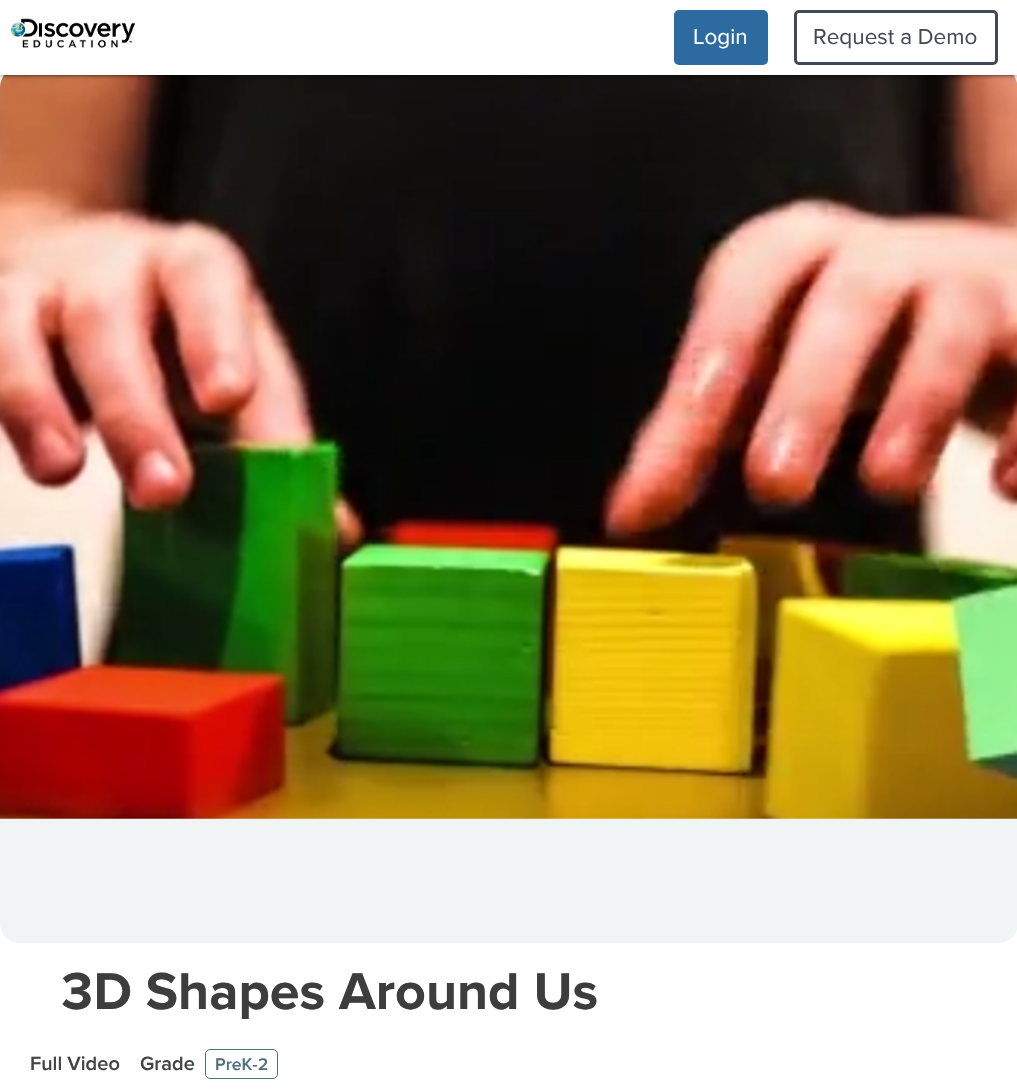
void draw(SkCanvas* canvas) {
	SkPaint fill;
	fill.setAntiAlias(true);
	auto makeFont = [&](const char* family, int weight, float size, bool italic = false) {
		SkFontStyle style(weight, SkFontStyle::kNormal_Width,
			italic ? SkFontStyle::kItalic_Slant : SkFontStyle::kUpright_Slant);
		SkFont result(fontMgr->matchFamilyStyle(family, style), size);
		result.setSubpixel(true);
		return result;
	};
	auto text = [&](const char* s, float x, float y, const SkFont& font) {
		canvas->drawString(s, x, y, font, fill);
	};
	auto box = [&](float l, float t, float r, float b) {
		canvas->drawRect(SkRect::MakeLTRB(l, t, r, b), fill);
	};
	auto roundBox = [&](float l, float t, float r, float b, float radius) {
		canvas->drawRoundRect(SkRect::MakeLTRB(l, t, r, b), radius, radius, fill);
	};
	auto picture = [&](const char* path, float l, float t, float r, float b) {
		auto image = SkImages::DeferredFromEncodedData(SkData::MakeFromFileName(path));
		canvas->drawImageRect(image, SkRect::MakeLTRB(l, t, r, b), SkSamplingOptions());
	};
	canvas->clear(0xFFFFFFFF);
	fill.setColor(0xFFF0F4F5);
	roundBox(0, 68, 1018, 943, 20);
	canvas->drawPath(SkPathBuilder().moveTo(20, 68).lineTo(998, 68).cubicTo(1009, 68, 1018, 77, 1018, 88).lineTo(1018, 819).lineTo(0, 819).lineTo(0, 88).cubicTo(0, 77, 9, 68, 20, 68).close().detach(), fill);
	picture("image1.png", 0, 75, 1017, 819);
	fill.setColor(0x33000000);
	fill.setMaskFilter(SkMaskFilter::MakeBlur(kNormal_SkBlurStyle, 0.5f));
	canvas->drawRect(SkRect::MakeLTRB(3, 6, 1015, 76), fill);
	fill.setMaskFilter(nullptr);
	fill.setColor(0x1F000000);
	fill.setMaskFilter(SkMaskFilter::MakeBlur(kNormal_SkBlurStyle, 3));
	canvas->drawRect(SkRect::MakeLTRB(0, 1, 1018, 76), fill);
	fill.setMaskFilter(nullptr);
	fill.setColor(0x24000000);
	fill.setMaskFilter(SkMaskFilter::MakeBlur(kNormal_SkBlurStyle, 1));
	canvas->drawRect(SkRect::MakeLTRB(0, 3, 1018, 78), fill);
	fill.setMaskFilter(nullptr);
	fill.setColor(0xFFFFFFFF);
	box(0, 0, 1017, 75);
	picture("image0.png", 10, 18, 135, 48);
	fill.setColor(0xFF2D6A9F);
	roundBox(674, 10, 768, 65, 5);
	fill.setStyle(SkPaint::kStroke_Style);
	fill.setStrokeWidth(3);
	fill.setColor(0xFF414858);
	canvas->drawRoundRect(SkRect::MakeLTRB(795.5f, 11.5f, 996.5f, 63.5f), 3.5f, 3.5f, fill);
	fill.setStrokeWidth(1);
	fill.setColor(0xFF50717C);
	canvas->drawRoundRect(SkRect::MakeLTRB(205.5f, 1049.5f, 277.5f, 1078.5f), 4.5f, 4.5f, fill);
	auto font1 = makeFont("Proxima Nova", 400, 22.5f);
	fill.setStyle(SkPaint::kFill_Style);
	fill.setColor(0xFFFFFFFF);
	text("Login", 693, 44, font1);
	fill.setColor(0xFF414858);
	text("Request a Demo", 813, 44, font1);
	auto font2 = makeFont("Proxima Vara", 700, 53.75f);
	fill.setColor(0xFF3D3D3D);
	text("3D Shapes Around Us", 60, 1009, font2);
	auto font3 = makeFont("Proxima Vara", 600, 20);
	fill.setColor(0xFF444444);
	text("Full Video", 30, 1070, font3);
	text("Grade", 140, 1070, font3);
	auto font4 = makeFont("Proxima Vara", 600, 17.5f);
	fill.setColor(0xFF50717C);
	text("PreK-2", 215, 1070, font4);
}
